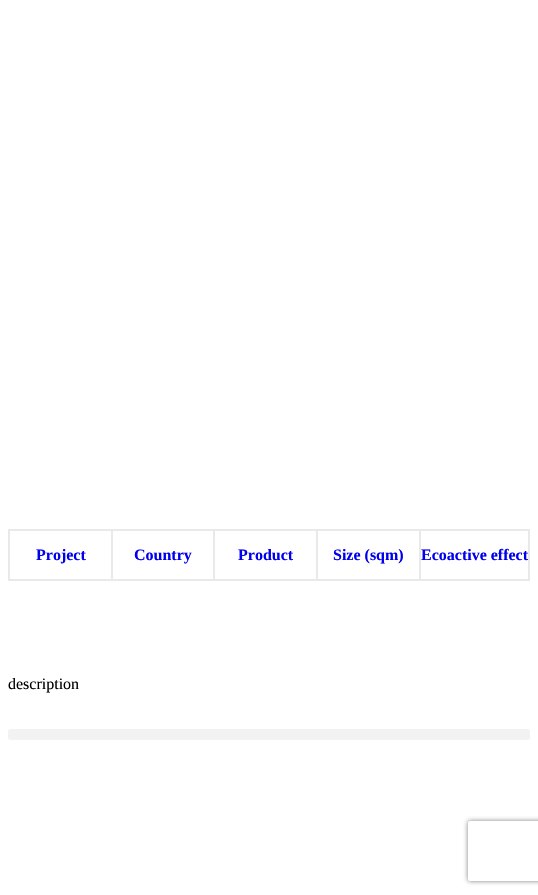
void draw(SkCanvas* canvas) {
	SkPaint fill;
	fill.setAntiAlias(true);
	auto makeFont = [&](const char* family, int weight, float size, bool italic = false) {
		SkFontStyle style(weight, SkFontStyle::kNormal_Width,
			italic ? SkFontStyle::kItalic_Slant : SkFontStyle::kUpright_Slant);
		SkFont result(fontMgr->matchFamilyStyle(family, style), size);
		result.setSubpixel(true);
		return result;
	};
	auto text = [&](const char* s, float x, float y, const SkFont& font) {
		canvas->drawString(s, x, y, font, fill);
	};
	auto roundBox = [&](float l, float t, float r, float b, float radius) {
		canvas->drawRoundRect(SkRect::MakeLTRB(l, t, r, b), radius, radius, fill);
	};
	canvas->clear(0xFFFFFFFF);
	fill.setStyle(SkPaint::kStroke_Style);
	fill.setStrokeWidth(1);
	fill.setColor(0xFFE9E9E9);
	canvas->drawRect(SkRect::MakeLTRB(8.5f, 529.5f, 529.5f, 580.5f), fill);
	canvas->drawRect(SkRect::MakeLTRB(9.5f, 530.5f, 111.5f, 579.5f), fill);
	canvas->drawRect(SkRect::MakeLTRB(112.5f, 530.5f, 213.5f, 579.5f), fill);
	canvas->drawRect(SkRect::MakeLTRB(214.5f, 530.5f, 316.5f, 579.5f), fill);
	canvas->drawRect(SkRect::MakeLTRB(317.5f, 530.5f, 419.5f, 579.5f), fill);
	canvas->drawRect(SkRect::MakeLTRB(420.5f, 530.5f, 528.5f, 579.5f), fill);
	fill.setStyle(SkPaint::kFill_Style);
	fill.setColor(0xFFF2F2F2);
	roundBox(8, 729, 530, 740, 3);
	canvas->save();
	canvas->clipPath(SkPathBuilder(SkPathFillType::kEvenOdd).moveTo(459, 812).lineTo(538, 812).lineTo(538, 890).lineTo(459, 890).close().moveTo(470, 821).lineTo(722, 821).cubicTo(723, 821, 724, 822, 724, 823).lineTo(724, 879).cubicTo(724, 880, 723, 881, 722, 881).lineTo(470, 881).cubicTo(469, 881, 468, 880, 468, 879).lineTo(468, 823).cubicTo(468, 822, 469, 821, 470, 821).close().detach(), true);
	fill.setColor(0xFF808080);
	fill.setMaskFilter(SkMaskFilter::MakeBlur(kNormal_SkBlurStyle, 2.5f));
	canvas->drawRoundRect(SkRect::MakeLTRB(468, 821, 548, 881), 2, 2, fill);
	fill.setMaskFilter(nullptr);
	canvas->restore();
	auto font1 = makeFont("Liberation Serif", 700, 16);
	fill.setColor(0xFF0000EE);
	text("Project", 36, 560, font1);
	text("Country", 134, 560, font1);
	text("Product", 238, 560, font1);
	text("Size (sqm)", 333, 560, font1);
	text("Ecoactive effect", 421, 560, font1);
	auto font2 = makeFont("Liberation Serif", 400, 16);
	fill.setColor(0xFF000000);
	text("description", 8, 689, font2);
}
